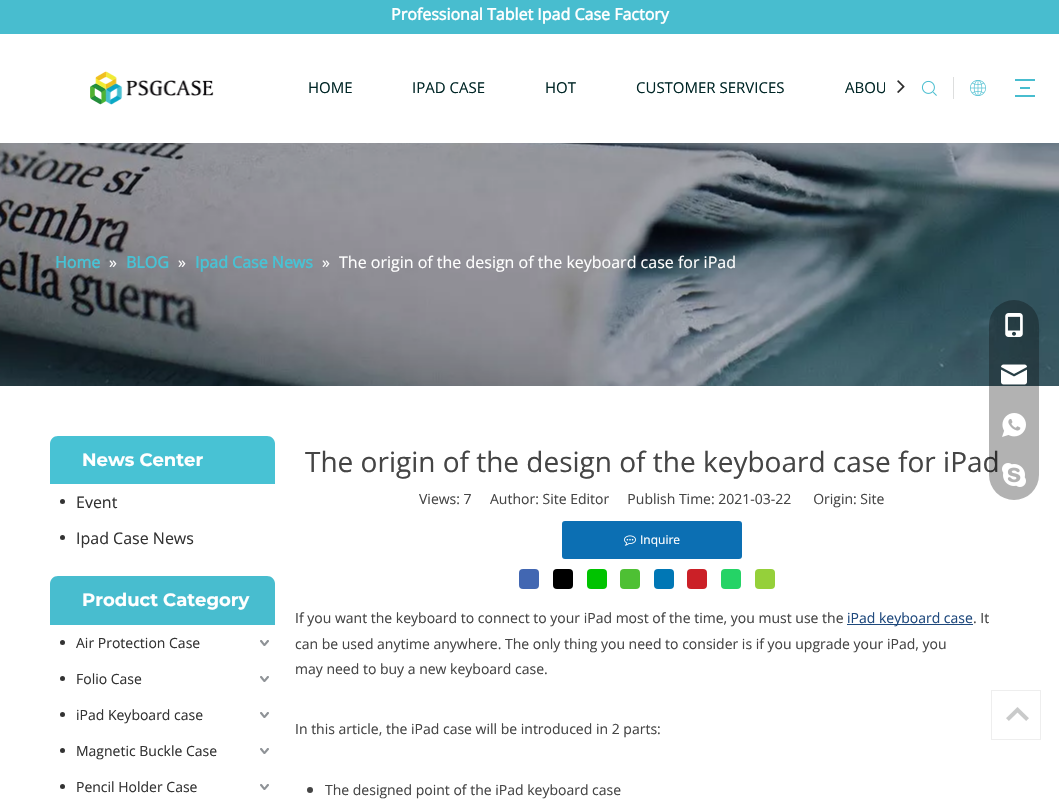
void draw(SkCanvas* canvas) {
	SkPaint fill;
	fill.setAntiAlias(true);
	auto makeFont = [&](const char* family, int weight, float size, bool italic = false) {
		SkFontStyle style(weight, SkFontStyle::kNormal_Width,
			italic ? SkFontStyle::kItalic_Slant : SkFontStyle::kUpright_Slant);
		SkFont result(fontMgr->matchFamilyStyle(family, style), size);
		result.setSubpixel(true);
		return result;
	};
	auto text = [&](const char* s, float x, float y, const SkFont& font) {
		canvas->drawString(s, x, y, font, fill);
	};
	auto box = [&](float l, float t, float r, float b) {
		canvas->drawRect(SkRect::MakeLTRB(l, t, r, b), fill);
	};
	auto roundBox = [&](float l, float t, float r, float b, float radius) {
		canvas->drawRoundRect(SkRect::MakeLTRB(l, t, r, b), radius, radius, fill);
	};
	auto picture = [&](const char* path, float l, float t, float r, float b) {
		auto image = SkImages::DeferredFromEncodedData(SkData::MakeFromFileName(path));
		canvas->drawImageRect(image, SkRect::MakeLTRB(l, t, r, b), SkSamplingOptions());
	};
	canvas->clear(0xFFFFFFFF);
	fill.setColor(0xFF48BDCF);
	box(0, 0, 1059, 34);
	picture("image0.png", 90, 71, 214, 105);
	picture("image1.png", 897, 80, 905, 93);
	fill.setColor(0xFFDDDEDE);
	box(953, 77, 954, 99);
	picture("image2.png", 921, 80, 937, 96);
	picture("image3.png", 970, 80, 986, 96);
	fill.setColor(0xFF48BDCF);
	box(1015, 79, 1035, 81);
	box(1020, 87, 1030, 89);
	box(1015, 95, 1035, 97);
	picture("image4.png", 0, 143, 1059, 386);
	fill.setColor(0xFF48C2D4);
	canvas->drawPath(SkPathBuilder().moveTo(58, 436).lineTo(267, 436).cubicTo(271.5f, 436, 275, 439.5f, 275, 444).lineTo(275, 484).lineTo(50, 484).lineTo(50, 444).cubicTo(50, 439.5f, 53.5f, 436, 58, 436).close().detach(), fill);
	fill.setColor(0xFF333333);
	canvas->drawCircle(62.5f, 501.5f, 2.5f, fill);
	canvas->drawCircle(62.5f, 537.5f, 2.5f, fill);
	fill.setColor(0xFF48BDCF);
	canvas->drawPath(SkPathBuilder().moveTo(58, 576).lineTo(267, 576).cubicTo(271.5f, 576, 275, 579.5f, 275, 584).lineTo(275, 625).lineTo(50, 625).lineTo(50, 584).cubicTo(50, 579.5f, 53.5f, 576, 58, 576).close().detach(), fill);
	fill.setColor(0xFF333333);
	canvas->drawCircle(62.5f, 642.5f, 2.5f, fill);
	picture("image5.png", 260, 640, 269, 646);
	canvas->drawCircle(62.5f, 678.5f, 2.5f, fill);
	picture("image5.png", 260, 676, 269, 682);
	canvas->drawCircle(62.5f, 714.5f, 2.5f, fill);
	picture("image5.png", 260, 712, 269, 718);
	canvas->drawCircle(62.5f, 750.5f, 2.5f, fill);
	picture("image5.png", 260, 748, 269, 754);
	canvas->drawCircle(62.5f, 786.5f, 2.5f, fill);
	picture("image5.png", 260, 784, 269, 790);
	fill.setColor(0xFF0C6FB3);
	roundBox(562, 521, 742, 559, 3);
	picture("image6.png", 624, 535, 636, 546);
	fill.setColor(0xFF4267B2);
	roundBox(519, 569, 539, 589, 4);
	fill.setColor(0xFF000000);
	roundBox(553, 569, 573, 589, 4);
	fill.setColor(0xFF00C300);
	roundBox(587, 569, 607, 589, 4);
	fill.setColor(0xFF4EC034);
	roundBox(620, 569, 640, 589, 4);
	fill.setColor(0xFF0077B5);
	roundBox(654, 569, 674, 589, 4);
	fill.setColor(0xFFCB2027);
	roundBox(687, 569, 707, 589, 4);
	fill.setColor(0xFF25D366);
	roundBox(721, 569, 741, 589, 4);
	fill.setColor(0xFF95D03A);
	roundBox(755, 569, 775, 589, 4);
	fill.setColor(0xFF1F497D);
	box(847, 624, 973, 625);
	fill.setColor(0xFF454545);
	canvas->drawCircle(310, 790, 3, fill);
	picture("image11.png", 991, 690, 1041, 740);
	auto font1 = makeFont("Open Sans", 700, 16);
	fill.setColor(0xFFFFFFFF);
	text("Professional Tablet Ipad Case Factory", 391, 20, font1);
	auto font2 = makeFont("Open Sans", 400, 15);
	fill.setColor(0xFF002626);
	text("HOME", 308, 93, font2);
	text("IPAD CASE", 412, 93, font2);
	text("HOT", 545, 93, font2);
	text("CUSTOMER SERVICES", 636, 93, font2);
	canvas->save();
	canvas->clipRect(SkRect::MakeLTRB(278, 34, 885, 143));
	text("ABOU", 845, 93, font2);
	canvas->restore();
	fill.setColor(0xFF48C2D4);
	text("Home", 55, 268, font1);
	auto font3 = makeFont("Open Sans", 400, 16);
	fill.setColor(0xFFFFFFFF);
	text("»", 109, 268, font3);
	fill.setColor(0xFF48C2D4);
	text("BLOG", 126, 268, font1);
	fill.setColor(0xFFFFFFFF);
	text("»", 178, 268, font3);
	fill.setColor(0xFF48C2D4);
	text("Ipad Case News", 195, 268, font1);
	fill.setColor(0xFFFFFFFF);
	text("»", 322, 268, font3);
	text("The origin of the design of the keyboard case for iPad", 339, 268, font3);
	auto font4 = makeFont("Montserrat", 700, 18);
	text("News Center", 82, 466, font4);
	fill.setColor(0xFF333333);
	text("Event", 76, 508, font3);
	text("Ipad Case News", 76, 544, font3);
	fill.setColor(0xFFFFFFFF);
	text("Product Category", 82, 606, font4);
	auto font5 = makeFont("Open Sans", 400, 14);
	fill.setColor(0xFF333333);
	text("Air Protection Case", 76, 648, font5);
	text("Folio Case", 76, 684, font5);
	text("iPad Keyboard case", 76, 720, font5);
	text("Magnetic Buckle Case", 76, 756, font5);
	text("Pencil Holder Case", 76, 792, font5);
	auto font6 = makeFont("Open Sans", 400, 28);
	fill.setColor(0xFF454545);
	text("The origin of the design of the keyboard case for iPad", 305, 472, font6);
	text("Views: 7", 419, 504, font5);
	text("Author: Site Editor     Publish Time: 2021-03-22      Origin: Site", 490, 504, font5);
	auto font7 = makeFont("Open Sans", 400, 12);
	fill.setColor(0xFFFFFFFF);
	text("Inquire", 640, 544, font7);
	fill.setColor(0xFF454545);
	text("If you want the keyboard to connect to your iPad most of the time, you must use the", 295, 623, font5);
	fill.setColor(0xFF1F497D);
	text("iPad keyboard case", 847, 623, font5);
	fill.setColor(0xFF454545);
	text(". It", 973, 623, font5);
	text("can be used anytime anywhere. The only thing you need to consider is if you upgrade your iPad, you", 295, 649, font5);
	text("may need to buy a new keyboard case.", 295, 674, font5);
	text("In this article, the iPad case will be introduced in 2 parts:", 295, 734, font5);
	text("The designed point of the iPad keyboard case", 325, 795, font5);
	fill.setColor(0x4D000000);
	roundBox(989, 300, 1039, 500, 25);
	picture("image7.png", 1005, 313, 1023, 337);
	picture("image8.png", 1001, 364, 1027, 385);
	picture("image9.png", 1002, 413, 1026, 437);
	picture("image10.png", 1002, 463, 1026, 487);
}
